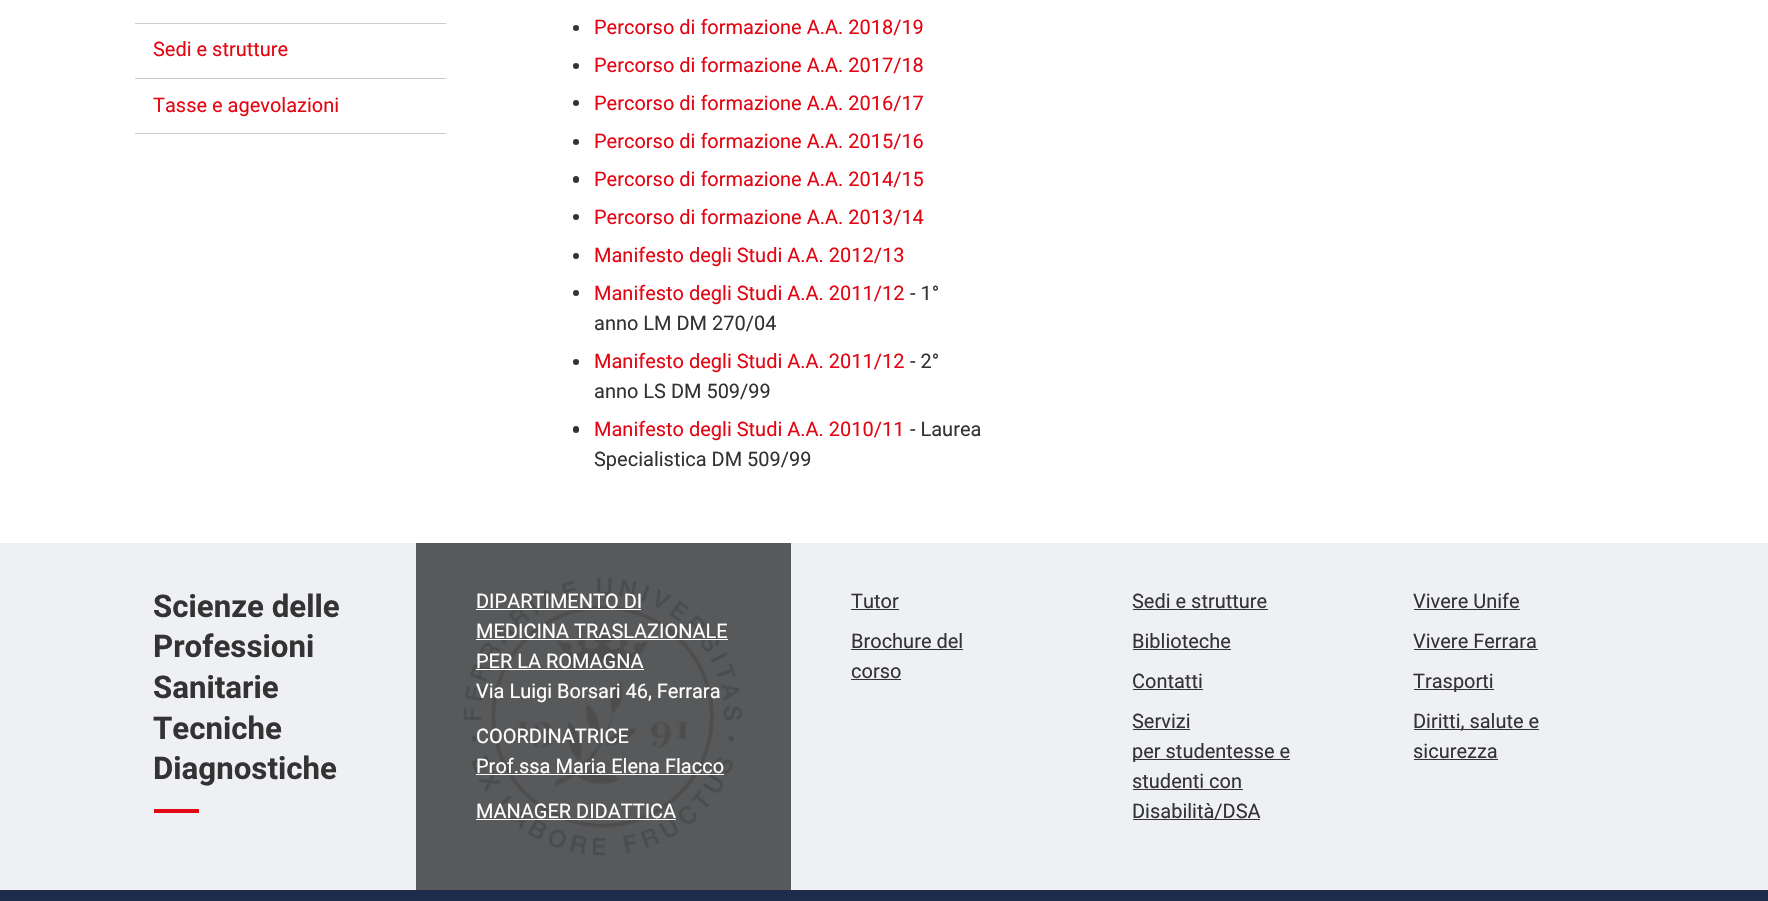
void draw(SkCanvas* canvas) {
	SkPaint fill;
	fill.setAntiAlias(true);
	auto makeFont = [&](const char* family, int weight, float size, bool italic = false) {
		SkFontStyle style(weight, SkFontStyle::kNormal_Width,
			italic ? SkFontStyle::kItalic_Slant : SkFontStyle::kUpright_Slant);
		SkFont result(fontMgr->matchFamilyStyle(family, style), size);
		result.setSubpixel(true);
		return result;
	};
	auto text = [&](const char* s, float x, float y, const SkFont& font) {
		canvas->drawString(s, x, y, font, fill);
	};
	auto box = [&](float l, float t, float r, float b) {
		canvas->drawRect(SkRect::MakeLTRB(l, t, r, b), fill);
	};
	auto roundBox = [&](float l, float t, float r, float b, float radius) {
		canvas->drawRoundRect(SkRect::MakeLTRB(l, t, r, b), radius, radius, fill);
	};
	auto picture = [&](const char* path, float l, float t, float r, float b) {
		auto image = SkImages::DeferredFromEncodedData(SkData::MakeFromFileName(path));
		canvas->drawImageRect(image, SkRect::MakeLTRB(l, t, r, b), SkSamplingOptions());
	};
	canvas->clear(0xFFFFFFFF);
	fill.setColor(0xFFC8CECD);
	box(135, 23, 446, 24);
	box(135, 78, 446, 79);
	box(135, 133, 446, 134);
	fill.setColor(0xFF333333);
	canvas->drawCircle(576, 28, 3, fill);
	canvas->drawCircle(576, 66, 3, fill);
	canvas->drawCircle(576, 103, 3, fill);
	canvas->drawCircle(576, 142, 3, fill);
	roundBox(573, 176, 579, 183, 3);
	canvas->drawCircle(576, 217, 3, fill);
	canvas->drawCircle(576, 256, 3, fill);
	canvas->drawCircle(576, 293, 3, fill);
	canvas->drawCircle(576, 362, 3, fill);
	roundBox(573, 426, 579, 433, 3);
	fill.setColor(0xFFEEF0F4);
	box(0, 543, 1768, 890);
	fill.setColor(0xFFE30613);
	box(154, 809, 199, 813);
	fill.setColor(0xFF58595A);
	box(416, 543, 791, 890);
	picture("image0.png", 463, 577, 742, 856);
	fill.setColor(0xFFFFFFFF);
	box(476, 609, 641, 610);
	box(476, 639, 728, 640);
	box(476, 669, 644, 670);
	box(476, 774, 724, 775);
	box(476, 819, 676, 820);
	fill.setColor(0xFF333333);
	box(851, 609, 899, 610);
	box(851, 649, 963, 650);
	box(851, 679, 901, 680);
	box(1133, 609, 1268, 610);
	box(1133, 649, 1231, 650);
	box(1133, 689, 1203, 690);
	box(1133, 729, 1190, 730);
	box(1133, 759, 1290, 760);
	box(1133, 789, 1243, 790);
	box(1133, 819, 1260, 820);
	box(1414, 609, 1520, 610);
	box(1414, 649, 1538, 650);
	box(1414, 689, 1494, 690);
	box(1414, 729, 1539, 730);
	box(1414, 759, 1498, 760);
	fill.setColor(0xFF1C2C4A);
	box(0, 890, 1768, 901);
	auto font1 = makeFont("Roboto", 400, 20);
	fill.setColor(0xFFE30613);
	text("Sedi e strutture", 153, 56, font1);
	text("Tasse e agevolazioni", 153, 112, font1);
	text("Percorso di formazione A.A. 2018/19", 594, 34, font1);
	text("Percorso di formazione A.A. 2017/18", 594, 72, font1);
	text("Percorso di formazione A.A. 2016/17", 594, 110, font1);
	text("Percorso di formazione A.A. 2015/16", 594, 148, font1);
	text("Percorso di formazione A.A. 2014/15", 594, 186, font1);
	text("Percorso di formazione A.A. 2013/14", 594, 224, font1);
	text("Manifesto degli Studi A.A. 2012/13", 594, 262, font1);
	text("Manifesto degli Studi A.A. 2011/12", 594, 300, font1);
	fill.setColor(0xFF333333);
	text("- 1°", 910, 300, font1);
	text("anno LM DM 270/04", 594, 330, font1);
	fill.setColor(0xFFE30613);
	text("Manifesto degli Studi A.A. 2011/12", 594, 368, font1);
	fill.setColor(0xFF333333);
	text("- 2°", 910, 368, font1);
	text("anno LS DM 509/99", 594, 398, font1);
	fill.setColor(0xFFE30613);
	text("Manifesto degli Studi A.A. 2010/11", 594, 436, font1);
	fill.setColor(0xFF333333);
	text("- Laurea", 910, 436, font1);
	text("Specialistica DM 509/99", 594, 466, font1);
	auto font2 = makeFont("Roboto", 700, 31.25f);
	text("Scienze delle", 153, 617, font2);
	text("Professioni", 153, 657, font2);
	text("Sanitarie", 153, 698, font2);
	text("Tecniche", 153, 739, font2);
	text("Diagnostiche", 153, 779, font2);
	fill.setColor(0xFFFFFFFF);
	text("DIPARTIMENTO DI", 476, 608, font1);
	text("MEDICINA TRASLAZIONALE", 476, 638, font1);
	text("PER LA ROMAGNA", 476, 668, font1);
	text("Via Luigi Borsari 46, Ferrara", 476, 698, font1);
	text("COORDINATRICE", 476, 743, font1);
	text("Prof.ssa Maria Elena Flacco", 476, 773, font1);
	text("MANAGER DIDATTICA", 476, 818, font1);
	fill.setColor(0xFF333333);
	text("Tutor", 851, 608, font1);
	text("Brochure del", 851, 648, font1);
	text("corso", 851, 678, font1);
	text("Sedi e strutture", 1132, 608, font1);
	text("Biblioteche", 1132, 648, font1);
	text("Contatti", 1132, 688, font1);
	text("Servizi", 1132, 728, font1);
	text("per studentesse e", 1132, 758, font1);
	text("studenti con", 1132, 788, font1);
	text("Disabilità/DSA", 1132, 818, font1);
	text("Vivere Unife", 1413, 608, font1);
	text("Vivere Ferrara", 1413, 648, font1);
	text("Trasporti", 1413, 688, font1);
	text("Diritti, salute e", 1413, 728, font1);
	text("sicurezza", 1413, 758, font1);
}
